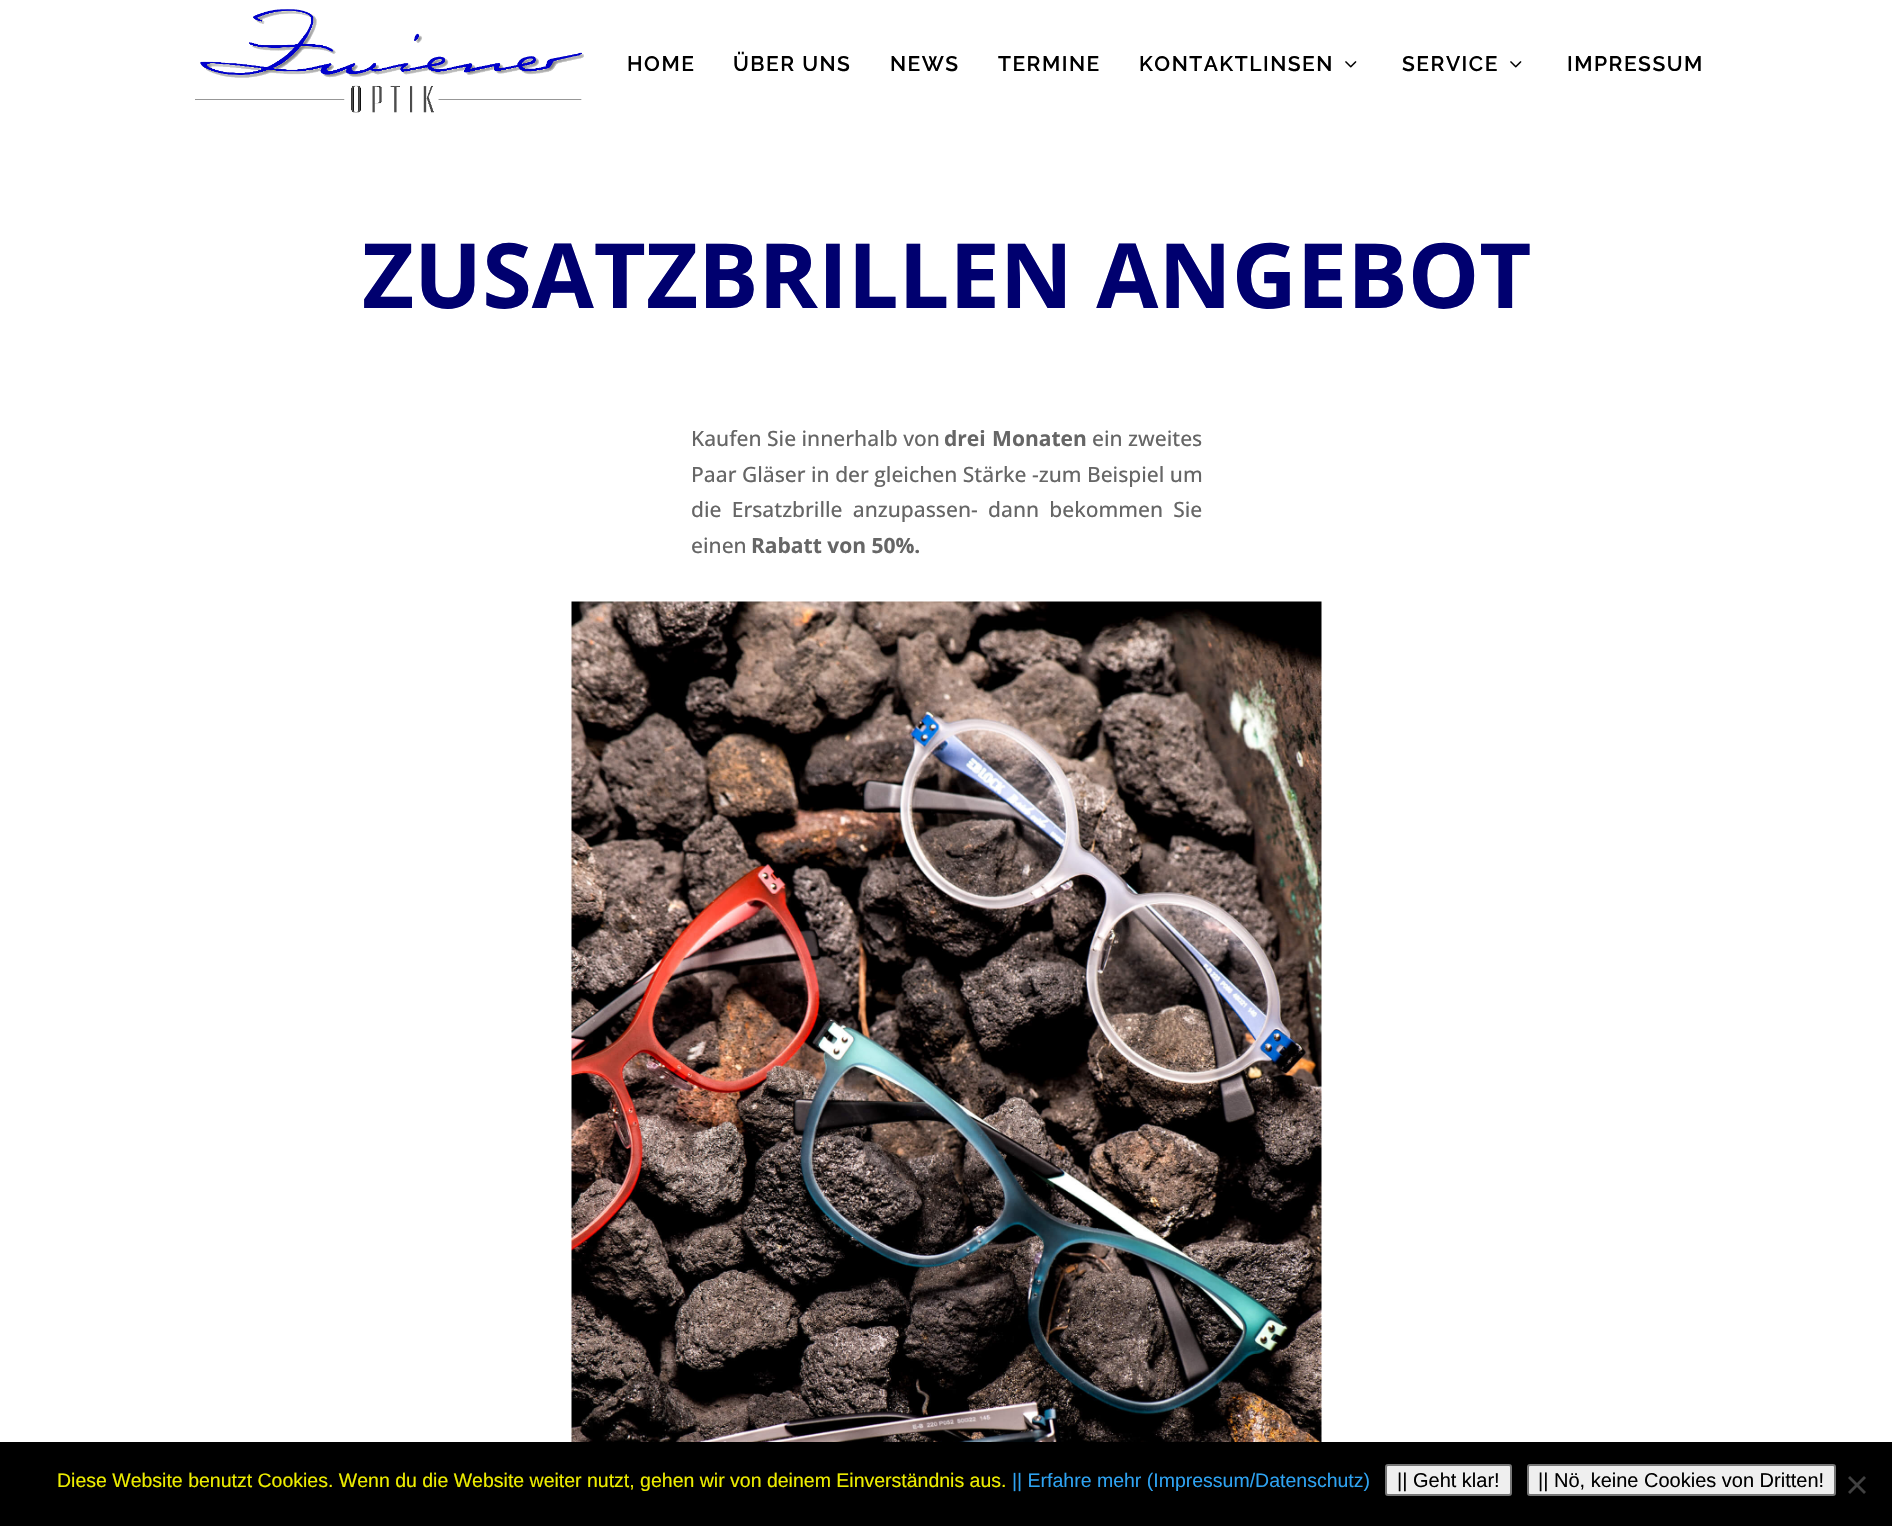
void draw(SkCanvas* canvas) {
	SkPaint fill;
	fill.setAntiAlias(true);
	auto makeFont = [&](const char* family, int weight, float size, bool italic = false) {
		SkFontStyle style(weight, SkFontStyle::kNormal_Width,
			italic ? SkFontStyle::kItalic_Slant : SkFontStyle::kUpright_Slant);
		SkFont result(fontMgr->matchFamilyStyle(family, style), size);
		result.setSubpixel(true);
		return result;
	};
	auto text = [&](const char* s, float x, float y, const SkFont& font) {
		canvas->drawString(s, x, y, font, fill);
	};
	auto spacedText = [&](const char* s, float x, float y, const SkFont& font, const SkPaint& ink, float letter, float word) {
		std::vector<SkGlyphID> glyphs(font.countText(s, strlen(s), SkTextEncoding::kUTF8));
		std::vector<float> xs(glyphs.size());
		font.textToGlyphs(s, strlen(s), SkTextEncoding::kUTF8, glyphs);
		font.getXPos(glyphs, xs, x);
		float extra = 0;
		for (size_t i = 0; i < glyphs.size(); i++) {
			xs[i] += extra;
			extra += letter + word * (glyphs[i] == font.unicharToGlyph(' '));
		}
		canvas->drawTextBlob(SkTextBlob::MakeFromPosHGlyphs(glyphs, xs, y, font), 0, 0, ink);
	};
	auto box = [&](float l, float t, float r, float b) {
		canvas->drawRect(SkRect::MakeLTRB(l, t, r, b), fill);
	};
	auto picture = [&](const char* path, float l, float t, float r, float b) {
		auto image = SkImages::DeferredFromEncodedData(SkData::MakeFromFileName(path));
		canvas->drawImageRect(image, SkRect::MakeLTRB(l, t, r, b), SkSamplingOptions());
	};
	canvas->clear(0xFFFFFFFF);
	picture("image0.png", 195, 9, 584, 113);
	picture("image1.png", 1345, 61, 1357, 68);
	picture("image1.png", 1510, 61, 1522, 68);
	picture("image2.png", 571, 601, 1322, 1442);
	fill.setColor(0xFF000000);
	box(0, 1442, 1892, 1526);
	fill.setColor(0xFFEFEFEF);
	canvas->drawRoundRect(SkRect::MakeLTRB(1386, 1465, 1511, 1495), 2, 2, fill);
	fill.setStyle(SkPaint::kStroke_Style);
	fill.setStrokeWidth(2);
	fill.setColor(0xFF767676);
	canvas->drawRoundRect(SkRect::MakeLTRB(1386, 1465, 1511, 1495), 2, 2, fill);
	fill.setStyle(SkPaint::kFill_Style);
	fill.setColor(0xFFEFEFEF);
	canvas->drawRoundRect(SkRect::MakeLTRB(1528, 1465, 1835, 1495), 2, 2, fill);
	fill.setStyle(SkPaint::kStroke_Style);
	fill.setColor(0xFF767676);
	canvas->drawRoundRect(SkRect::MakeLTRB(1528, 1465, 1835, 1495), 2, 2, fill);
	fill.setStyle(SkPaint::kFill_Style);
	fill.setColor(0xFF404040);
	canvas->drawPath(SkPathBuilder().moveTo(1864, 1476).lineTo(1866, 1478).lineTo(1850, 1494).lineTo(1848, 1492).close().detach(), fill);
	canvas->drawPath(SkPathBuilder().moveTo(1848, 1478).lineTo(1850, 1476).lineTo(1866, 1492).lineTo(1864, 1494).close().detach(), fill);
	auto font1 = makeFont("Raleway", 600, 21);
	fill.setColor(0xFF000000);
	spacedText("HOME", 627, 71, font1, fill, 1.5f, 0);
	spacedText("ÜBER UNS", 733, 71, font1, fill, 1.5f, 0);
	spacedText("NEWS", 890, 71, font1, fill, 1.5f, 0);
	spacedText("TERMINE", 998, 71, font1, fill, 1.5f, 0);
	spacedText("KONTAKTLINSEN", 1139, 71, font1, fill, 1.5f, 0);
	spacedText("SERVICE", 1402, 71, font1, fill, 1.5f, 0);
	spacedText("IMPRESSUM", 1567, 71, font1, fill, 1.5f, 0);
	auto font2 = makeFont("Open Sans", 700, 90);
	fill.setColor(0xFF00006F);
	text("ZUSATZBRILLEN ANGEBOT", 362, 308, font2);
	auto font3 = makeFont("Open Sans", 500, 21);
	fill.setColor(0xFF666666);
	text("Kaufen Sie innerhalb von", 691, 446, font3);
	auto font4 = makeFont("Open Sans", 700, 21);
	spacedText("drei Monaten", 944, 446, font4, fill, 0, 1);
	text("ein zweites", 1092, 446, font3);
	text("Paar Gläser in der gleichen Stärke -zum Beispiel um", 691, 482, font3);
	spacedText("die Ersatzbrille anzupassen- dann bekommen Sie", 691, 517, font3, fill, 0, 4.75f);
	text("einen", 691, 553, font3);
	text("Rabatt von 50%.", 751, 553, font4);
	auto font5 = makeFont("Liberation Sans", 400, 19.5f);
	fill.setColor(0xFFEDED00);
	text("Diese Website benutzt Cookies. Wenn du die Website weiter nutzt, gehen wir von deinem Einverständnis aus.", 57, 1487, font5);
	fill.setColor(0xFF2EA3F2);
	text("|| Erfahre mehr (Impressum/Datenschutz)", 1012, 1487, font5);
	auto font6 = makeFont("Liberation Sans", 400, 20);
	fill.setColor(0xFF000000);
	text("|| Geht klar!", 1397, 1487, font6);
	text("|| Nö, keine Cookies von Dritten!", 1538, 1487, font6);
}
